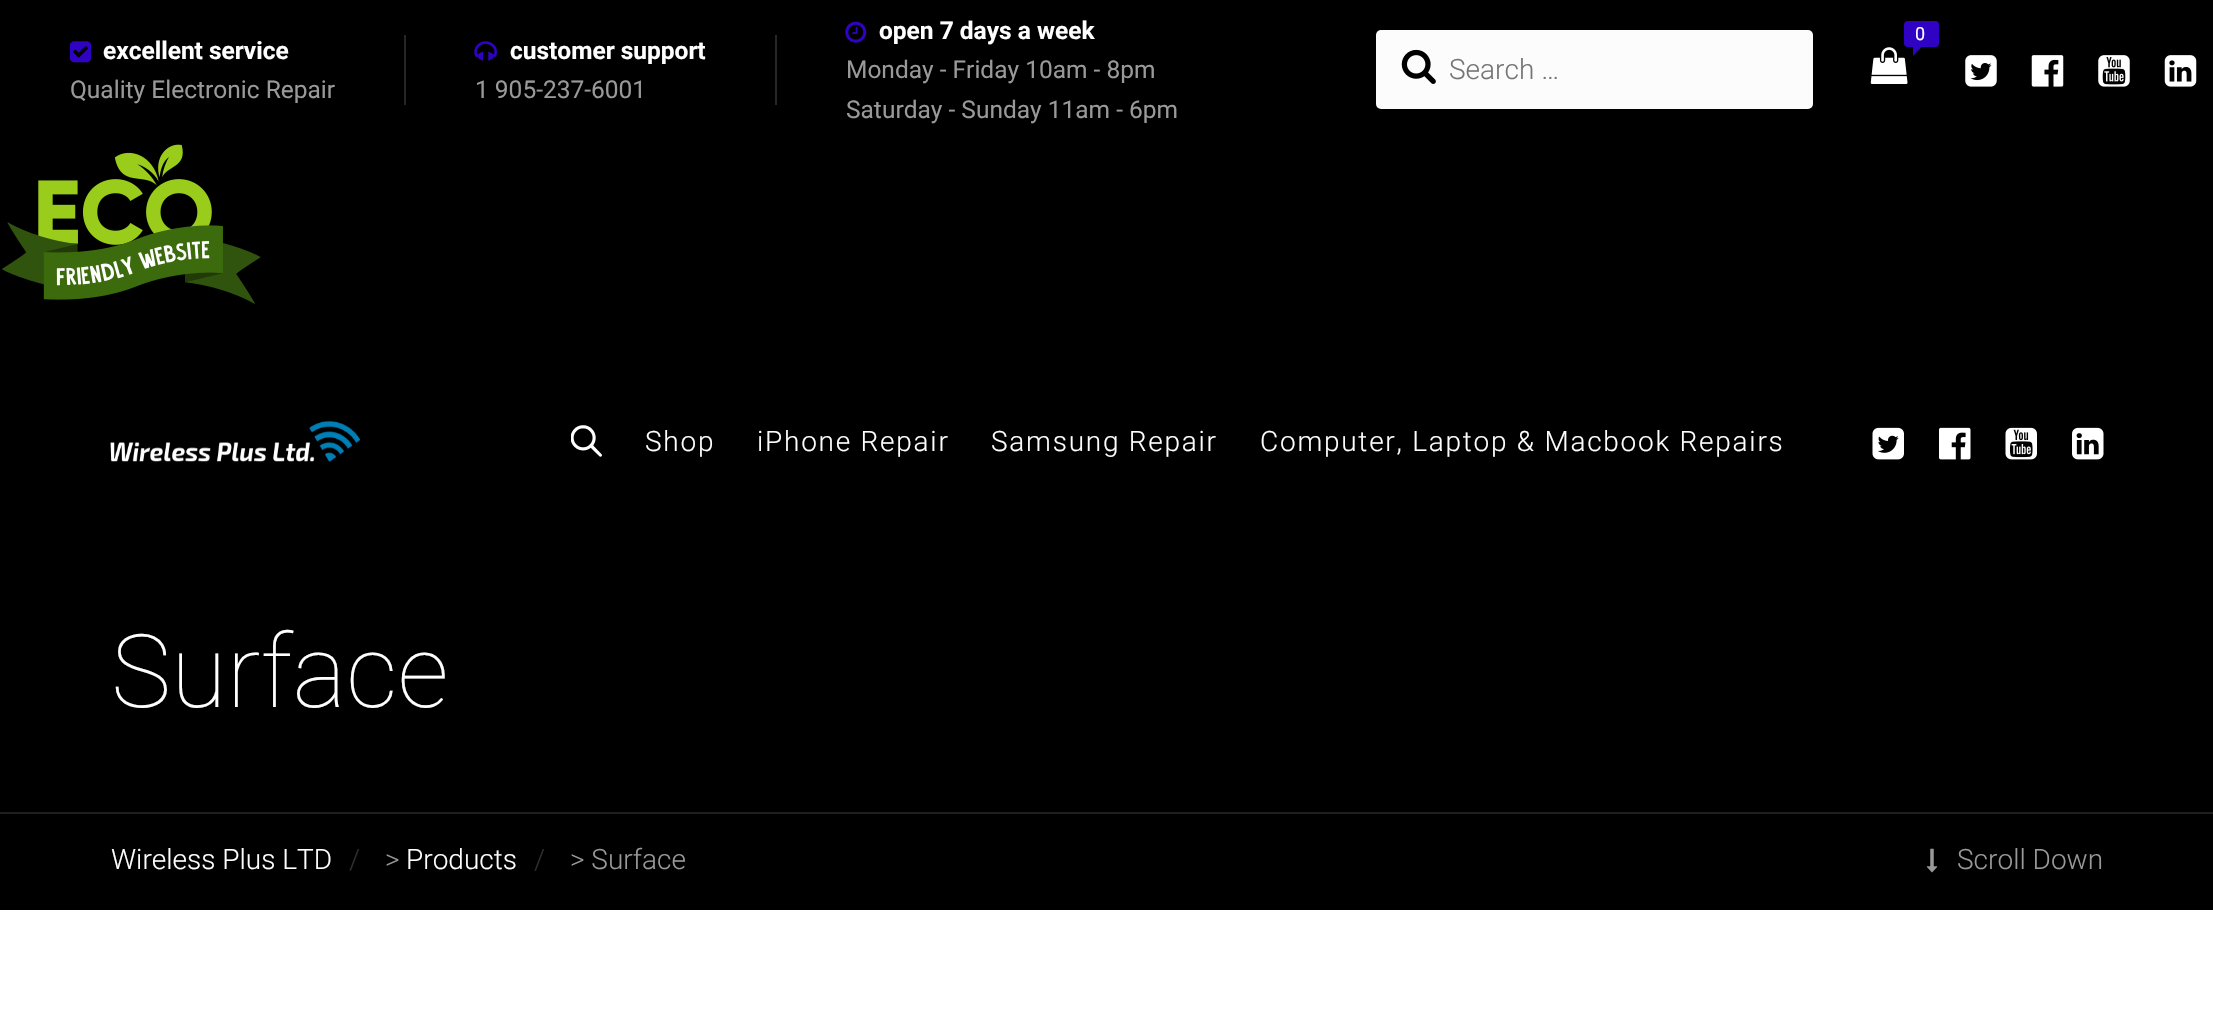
void draw(SkCanvas* canvas) {
	SkPaint fill;
	fill.setAntiAlias(true);
	auto makeFont = [&](const char* family, int weight, float size, bool italic = false) {
		SkFontStyle style(weight, SkFontStyle::kNormal_Width,
			italic ? SkFontStyle::kItalic_Slant : SkFontStyle::kUpright_Slant);
		SkFont result(fontMgr->matchFamilyStyle(family, style), size);
		result.setSubpixel(true);
		return result;
	};
	auto text = [&](const char* s, float x, float y, const SkFont& font) {
		canvas->drawString(s, x, y, font, fill);
	};
	auto spacedText = [&](const char* s, float x, float y, const SkFont& font, const SkPaint& ink, float letter, float word) {
		std::vector<SkGlyphID> glyphs(font.countText(s, strlen(s), SkTextEncoding::kUTF8));
		std::vector<float> xs(glyphs.size());
		font.textToGlyphs(s, strlen(s), SkTextEncoding::kUTF8, glyphs);
		font.getXPos(glyphs, xs, x);
		float extra = 0;
		for (size_t i = 0; i < glyphs.size(); i++) {
			xs[i] += extra;
			extra += letter + word * (glyphs[i] == font.unicharToGlyph(' '));
		}
		canvas->drawTextBlob(SkTextBlob::MakeFromPosHGlyphs(glyphs, xs, y, font), 0, 0, ink);
	};
	auto box = [&](float l, float t, float r, float b) {
		canvas->drawRect(SkRect::MakeLTRB(l, t, r, b), fill);
	};
	auto roundBox = [&](float l, float t, float r, float b, float radius) {
		canvas->drawRoundRect(SkRect::MakeLTRB(l, t, r, b), radius, radius, fill);
	};
	auto picture = [&](const char* path, float l, float t, float r, float b) {
		auto image = SkImages::DeferredFromEncodedData(SkData::MakeFromFileName(path));
		canvas->drawImageRect(image, SkRect::MakeLTRB(l, t, r, b), SkSamplingOptions());
	};
	canvas->clear(0xFFFFFFFF);
	fill.setColor(0xFF000000);
	box(0, 0, 2213, 910);
	picture("image0.png", 70, 41, 91, 63);
	fill.setColor(0xFF262626);
	box(404, 35, 406, 105);
	picture("image1.png", 474, 41, 497, 61);
	box(775, 35, 777, 105);
	picture("image2.png", 845, 21, 867, 43);
	picture("image3.png", 1, 144, 261, 304);
	fill.setColor(0xFF3002C3);
	roundBox(1904, 21, 1939, 47, 4);
	canvas->drawPath(SkPathBuilder().moveTo(1913, 47).lineTo(1921.5f, 47).lineTo(1913, 56).close().detach(), fill);
	picture("image4.png", 1870, 47, 1908, 84);
	fill.setColor(0xFFFCFCFC);
	roundBox(1376, 30, 1813, 109, 5);
	picture("image5.png", 1401, 49, 1436, 84);
	picture("image6.png", 1965, 55, 1997, 87);
	picture("image7.png", 2031, 55, 2064, 87);
	picture("image8.png", 2098, 55, 2130, 87);
	picture("image9.png", 2164, 55, 2197, 87);
	picture("image10.png", 110, 420, 361, 462);
	picture("image11.png", 571, 425, 602, 457);
	picture("image12.png", 1872, 427, 1904, 460);
	picture("image13.png", 1939, 427, 1971, 460);
	picture("image14.png", 2005, 427, 2037, 460);
	picture("image15.png", 2072, 427, 2104, 460);
	fill.setColor(0xFF1F1F1F);
	box(0, 812, 2213, 814);
	picture("image16.png", 1926, 848, 1938, 873);
	auto font1 = makeFont("Roboto", 700, 24.5f);
	fill.setColor(0xFFFFFFFF);
	text("excellent service", 103, 59, font1);
	auto font2 = makeFont("Roboto", 400, 24.5f);
	fill.setColor(0xFF999999);
	text("Quality Electronic Repair", 70, 98, font2);
	fill.setColor(0xFFFFFFFF);
	text("customer support", 510, 59, font1);
	fill.setColor(0xFF999999);
	text("1 905-237-6001", 475, 98, font2);
	fill.setColor(0xFFFFFFFF);
	text("open 7 days a week", 879, 39, font1);
	fill.setColor(0xFF999999);
	text("Monday - Friday 10am - 8pm", 846, 78, font2);
	text("Saturday - Sunday 11am - 6pm", 846, 118, font2);
	auto font3 = makeFont("Roboto", 400, 18);
	fill.setColor(0xFFFFFFFF);
	text("0", 1915, 40, font3);
	auto font4 = makeFont("Roboto", 300, 28);
	fill.setColor(0xFF757575);
	text("Search …", 1449, 79, font4);
	fill.setColor(0xFFFFFFFF);
	spacedText("Shop", 645, 451, font4, fill, 1.75f, 0);
	spacedText("iPhone Repair", 757, 451, font4, fill, 1.75f, 0);
	spacedText("Samsung Repair", 991, 451, font4, fill, 1.75f, 0);
	spacedText("Computer, Laptop & Macbook Repairs", 1260, 451, font4, fill, 1.75f, 0);
	auto font5 = makeFont("Roboto", 100, 101.5f);
	text("Surface", 111, 707, font5);
	text("Wireless Plus LTD", 111, 869, font4);
	fill.setColor(0xFF2E2E2E);
	text("/", 349, 869, font4);
	fill.setColor(0xFF999999);
	text(">", 385, 869, font4);
	fill.setColor(0xFFFFFFFF);
	text("Products", 406, 869, font4);
	fill.setColor(0xFF2E2E2E);
	text("/", 534, 869, font4);
	fill.setColor(0xFF999999);
	text("> Surface", 570, 869, font4);
	text("Scroll Down", 1957, 869, font4);
}
